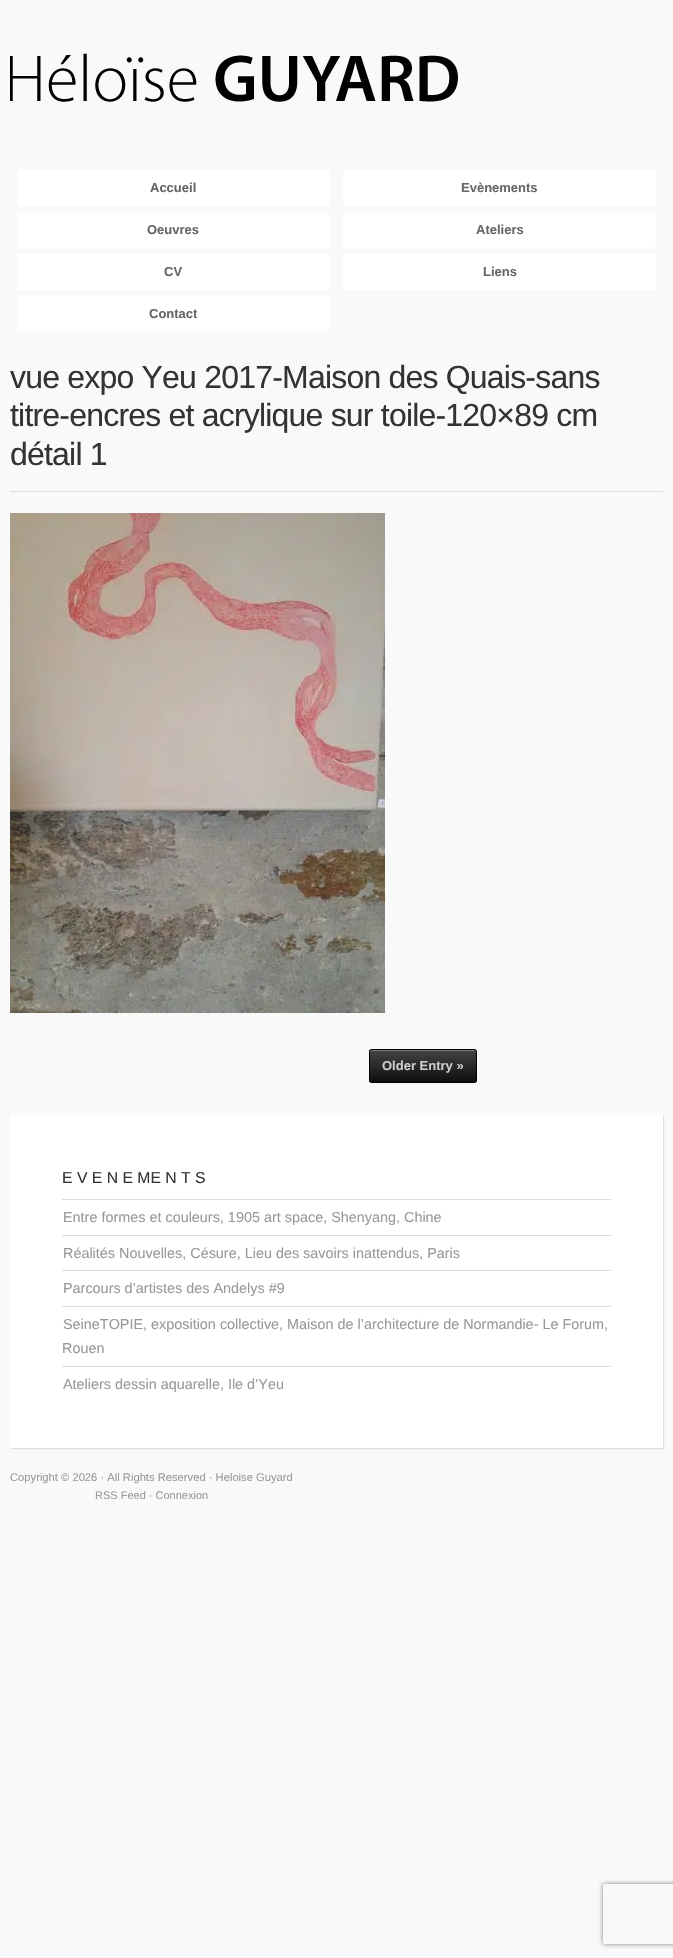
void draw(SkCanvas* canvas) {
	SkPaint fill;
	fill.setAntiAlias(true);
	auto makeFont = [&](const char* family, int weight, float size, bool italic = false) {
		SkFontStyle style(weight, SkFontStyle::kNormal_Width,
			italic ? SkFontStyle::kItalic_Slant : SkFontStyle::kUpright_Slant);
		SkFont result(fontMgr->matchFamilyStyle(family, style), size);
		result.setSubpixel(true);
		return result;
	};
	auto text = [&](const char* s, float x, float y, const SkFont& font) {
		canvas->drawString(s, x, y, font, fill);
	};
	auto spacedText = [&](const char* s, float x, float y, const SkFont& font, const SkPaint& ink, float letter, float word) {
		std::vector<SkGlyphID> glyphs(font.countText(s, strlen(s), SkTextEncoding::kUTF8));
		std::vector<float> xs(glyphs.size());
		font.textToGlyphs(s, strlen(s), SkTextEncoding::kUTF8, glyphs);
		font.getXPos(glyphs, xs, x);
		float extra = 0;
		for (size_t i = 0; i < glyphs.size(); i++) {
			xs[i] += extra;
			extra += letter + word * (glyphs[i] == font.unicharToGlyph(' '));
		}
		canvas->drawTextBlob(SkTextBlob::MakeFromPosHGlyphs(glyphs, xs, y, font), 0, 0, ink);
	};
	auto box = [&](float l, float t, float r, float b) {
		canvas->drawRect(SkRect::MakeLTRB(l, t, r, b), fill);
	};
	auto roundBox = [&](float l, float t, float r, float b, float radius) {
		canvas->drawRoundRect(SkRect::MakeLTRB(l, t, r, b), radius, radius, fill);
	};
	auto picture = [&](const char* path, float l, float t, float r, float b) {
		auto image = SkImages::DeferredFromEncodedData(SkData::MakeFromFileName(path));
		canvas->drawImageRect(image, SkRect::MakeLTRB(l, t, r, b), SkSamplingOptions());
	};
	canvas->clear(0xFFF9F9F9);
	picture("image0.png", 10, 53, 458, 102);
	fill.setColor(0xFFFFFFFF);
	roundBox(17, 170, 330, 206, 3);
	roundBox(343, 170, 656, 206, 3);
	roundBox(17, 212, 330, 248, 3);
	roundBox(343, 212, 656, 248, 3);
	roundBox(17, 254, 330, 290, 3);
	roundBox(343, 254, 656, 290, 3);
	roundBox(17, 296, 330, 332, 3);
	fill.setColor(0xFFDDDDDD);
	box(10, 491, 663, 492);
	picture("image1.png", 10, 513, 385, 1013);
	fill.setColor(0xFF444444);
	roundBox(369, 1049, 477, 1083, 3);
	canvas->save();
	canvas->clipPath(SkPathBuilder().moveTo(372, 1049).lineTo(474, 1049).cubicTo(475.5f, 1049, 477, 1050.5f, 477, 1052).lineTo(477, 1080).cubicTo(477, 1081.5f, 475.5f, 1083, 474, 1083).lineTo(372, 1083).cubicTo(370.5f, 1083, 369, 1081.5f, 369, 1080).lineTo(369, 1052).cubicTo(369, 1050.5f, 370.5f, 1049, 372, 1049).close().detach(), true);
	{
		const SkColor colors[] = {0x00000000, 0xCC000000};
		const float stops[] = {0, 1};
		const SkPoint ends[] = {{423, 1050}, {423, 1082}};
		fill.setShader(SkGradientShader::MakeLinear(ends, colors, stops, 2, SkTileMode::kClamp));
		fill.setAlpha(255);
	}
	box(369, 1051, 477, 1082);
	canvas->restore();
	fill.setShader(nullptr);
	fill.setColor(0xFF7C7C7C);
	canvas->drawPath(SkPathBuilder().moveTo(372, 1051).lineTo(474, 1051).cubicTo(475, 1051, 476, 1052, 476, 1053).cubicTo(476, 1052, 476, 1050, 474, 1050).lineTo(372, 1050).cubicTo(370, 1050, 370, 1052, 370, 1053).cubicTo(370, 1052, 371, 1051, 372, 1051).close().detach(), fill);
	fill.setStyle(SkPaint::kStroke_Style);
	fill.setStrokeWidth(1);
	fill.setColor(0xFF000000);
	canvas->drawRoundRect(SkRect::MakeLTRB(369.5f, 1049.5f, 476.5f, 1082.5f), 2.5f, 2.5f, fill);
	fill.setStyle(SkPaint::kFill_Style);
	fill.setColor(0x1A000000);
	fill.setMaskFilter(SkMaskFilter::MakeBlur(kNormal_SkBlurStyle, 0.5f));
	canvas->drawRect(SkRect::MakeLTRB(11, 1116, 664, 1449), fill);
	fill.setMaskFilter(nullptr);
	fill.setColor(0xFFFFFFFF);
	box(10, 1115, 663, 1448);
	fill.setColor(0xFFDDDDDD);
	box(62, 1199, 611, 1200);
	box(62, 1235, 611, 1236);
	box(62, 1270, 611, 1271);
	box(62, 1306, 611, 1307);
	box(62, 1366, 611, 1367);
	canvas->save();
	canvas->clipPath(SkPathBuilder(SkPathFillType::kEvenOdd).moveTo(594, 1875).lineTo(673, 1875).lineTo(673, 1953).lineTo(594, 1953).close().moveTo(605, 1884).lineTo(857, 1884).cubicTo(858, 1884, 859, 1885, 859, 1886).lineTo(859, 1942).cubicTo(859, 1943, 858, 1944, 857, 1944).lineTo(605, 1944).cubicTo(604, 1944, 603, 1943, 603, 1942).lineTo(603, 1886).cubicTo(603, 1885, 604, 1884, 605, 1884).close().detach(), true);
	fill.setColor(0xFF808080);
	fill.setMaskFilter(SkMaskFilter::MakeBlur(kNormal_SkBlurStyle, 2.5f));
	canvas->drawRoundRect(SkRect::MakeLTRB(603, 1884, 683, 1944), 2, 2, fill);
	fill.setMaskFilter(nullptr);
	canvas->restore();
	auto font1 = makeFont("Liberation Sans", 700, 13);
	fill.setColor(0xFF666666);
	text("Accueil", 150, 192, font1);
	text("Evènements", 461, 192, font1);
	text("Oeuvres", 147, 234, font1);
	text("Ateliers", 476, 234, font1);
	text("CV", 164, 276, font1);
	text("Liens", 483, 276, font1);
	text("Contact", 149, 318, font1);
	auto font2 = makeFont("Liberation Sans", 400, 32);
	fill.setColor(0xFF333333);
	spacedText("vue expo Yeu 2017-Maison des Quais-sans", 10, 388, font2, fill, -0.8f, 0);
	spacedText("titre-encres et acrylique sur toile-120×89 cm", 10, 426, font2, fill, -0.8f, 0);
	spacedText("détail 1", 10, 465, font2, fill, -0.8f, 0);
	fill.setColor(0xFFCCCCCC);
	text("Older Entry »", 382, 1070, font1);
	auto font3 = makeFont("Liberation Sans", 400, 15.75f);
	fill.setColor(0xFF333333);
	text("E V E N E ME N T S", 62, 1183, font3);
	auto font4 = makeFont("Liberation Sans", 400, 14.4f);
	fill.setColor(0xFF999999);
	text("Entre formes et couleurs, 1905 art space, Shenyang, Chine", 63, 1222, font4);
	text("Réalités Nouvelles, Césure, Lieu des savoirs inattendus, Paris", 63, 1258, font4);
	text("Parcours d’artistes des Andelys #9", 63, 1293, font4);
	text("SeineTOPIE, exposition collective, Maison de l’architecture de Normandie- Le Forum,", 63, 1329, font4);
	text("Rouen", 62, 1353, font4);
	text("Ateliers dessin aquarelle, Ile d’Yeu", 63, 1389, font4);
	auto font5 = makeFont("Liberation Sans", 400, 11.2f);
	text("Copyright © 2026 · All Rights Reserved · Heloise Guyard", 10, 1481, font5);
	auto font6 = makeFont("Liberation Sans", 400, 11);
	text("RSS Feed · Connexion", 95, 1499, font6);
}
